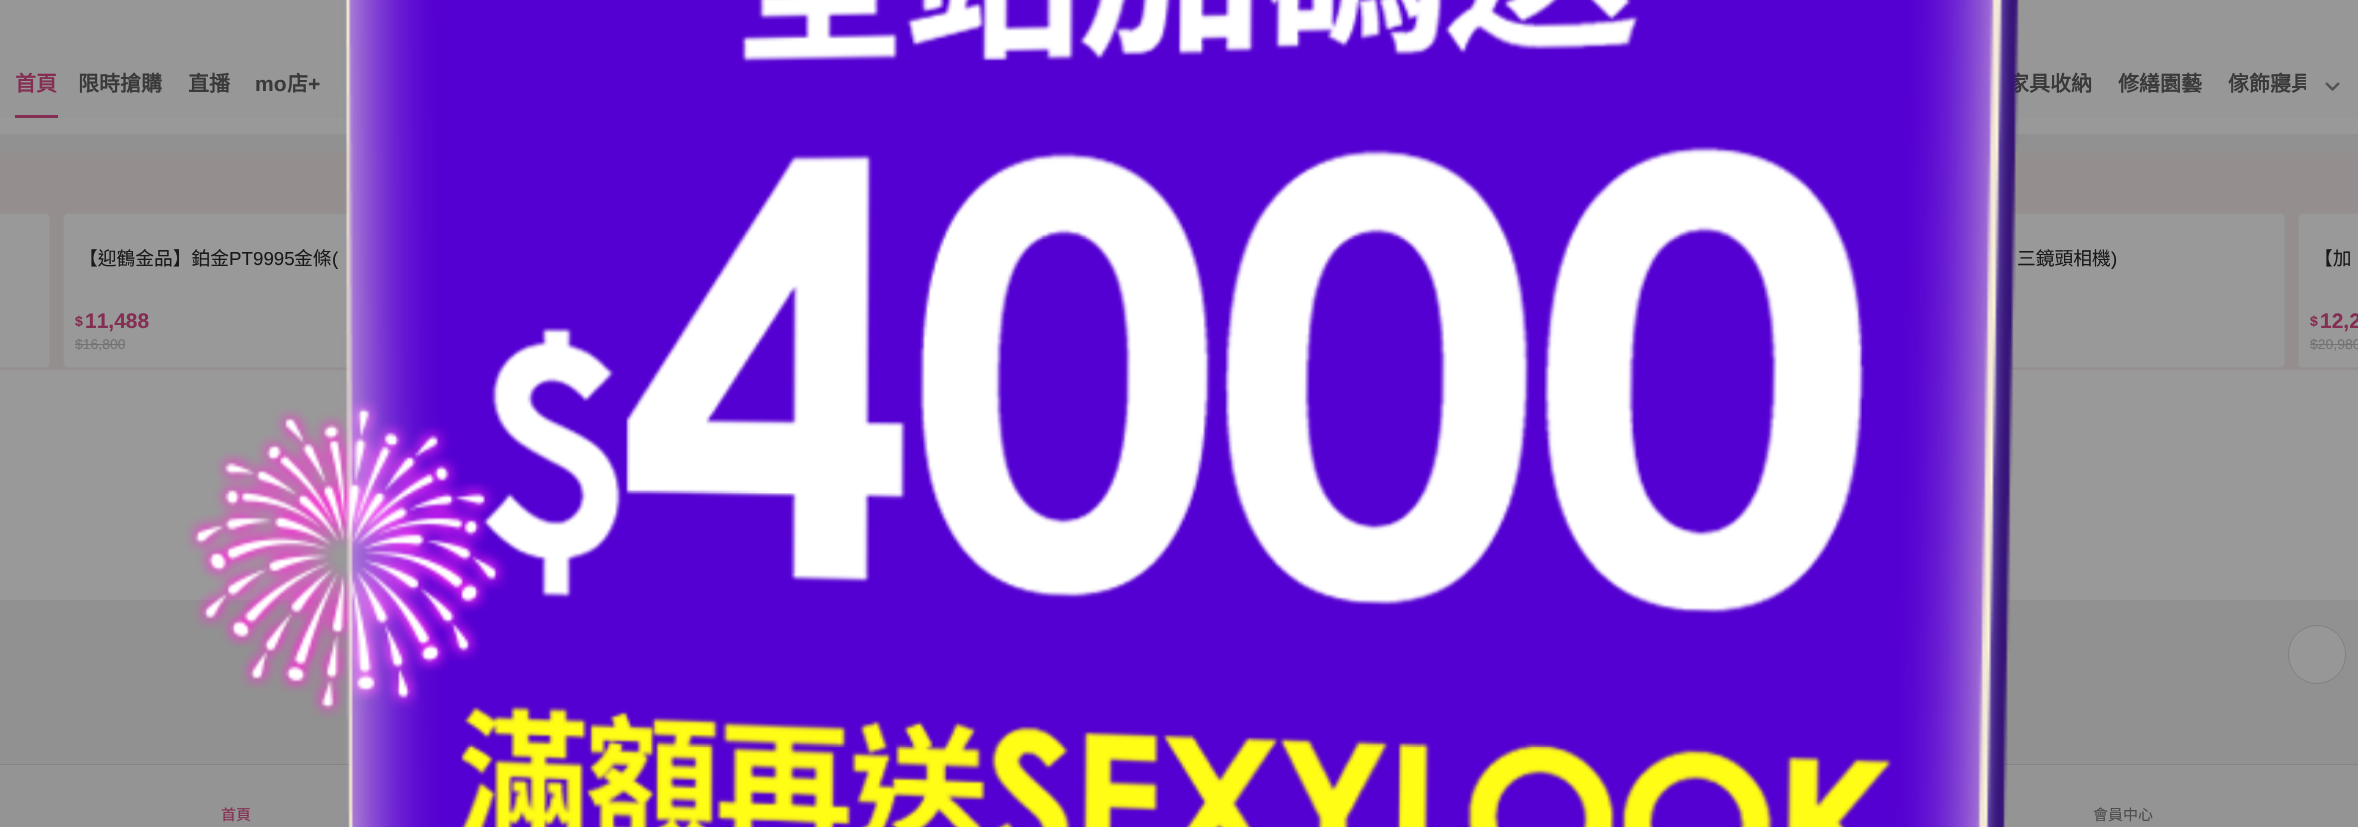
void draw(SkCanvas* canvas) {
	SkPaint fill;
	fill.setAntiAlias(true);
	auto makeFont = [&](const char* family, int weight, float size, bool italic = false) {
		SkFontStyle style(weight, SkFontStyle::kNormal_Width,
			italic ? SkFontStyle::kItalic_Slant : SkFontStyle::kUpright_Slant);
		SkFont result(fontMgr->matchFamilyStyle(family, style), size);
		result.setSubpixel(true);
		return result;
	};
	auto text = [&](const char* s, float x, float y, const SkFont& font) {
		canvas->drawString(s, x, y, font, fill);
	};
	auto box = [&](float l, float t, float r, float b) {
		canvas->drawRect(SkRect::MakeLTRB(l, t, r, b), fill);
	};
	auto picture = [&](const char* path, float l, float t, float r, float b) {
		auto image = SkImages::DeferredFromEncodedData(SkData::MakeFromFileName(path));
		canvas->drawImageRect(image, SkRect::MakeLTRB(l, t, r, b), SkSamplingOptions());
	};
	canvas->clear(0xFF919191);
	fill.setColor(0xFF979797);
	box(0, 0, 2358, 118);
	fill.setColor(0xFF852E53);
	box(15, 115, 58, 118);
	picture("image1.png", 2325, 82, 2340, 91);
	fill.setColor(0xFF999999);
	box(0, 118, 2358, 134);
	fill.setColor(0xFF958E8F);
	box(0, 153, 2358, 370);
	fill.setColor(0xFF999999);
	canvas->drawPath(SkPathBuilder().moveTo(0, 213).lineTo(45, 213).cubicTo(48, 213, 50, 215, 50, 218).lineTo(50, 363).cubicTo(50, 366, 48, 368, 45, 368).lineTo(0, 368).close().detach(), fill);
	fill.setStyle(SkPaint::kStroke_Style);
	fill.setStrokeWidth(1);
	fill.setColor(0xFF939393);
	canvas->drawRoundRect(SkRect::MakeLTRB(-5.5f, 213.5f, 49.5f, 367.5f), 4.5f, 4.5f, fill);
	fill.setStyle(SkPaint::kFill_Style);
	fill.setColor(0xFF999999);
	canvas->drawRoundRect(SkRect::MakeLTRB(63.5f, 213.5f, 1167.5f, 367.5f), 4.5f, 4.5f, fill);
	fill.setStyle(SkPaint::kStroke_Style);
	fill.setColor(0xFF939393);
	canvas->drawRoundRect(SkRect::MakeLTRB(63.5f, 213.5f, 1167.5f, 367.5f), 4.5f, 4.5f, fill);
	fill.setStyle(SkPaint::kFill_Style);
	fill.setColor(0xFF737373);
	box(75, 344, 125, 345);
	fill.setColor(0xFF999999);
	canvas->drawRoundRect(SkRect::MakeLTRB(1180.5f, 213.5f, 2284.5f, 367.5f), 4.5f, 4.5f, fill);
	fill.setStyle(SkPaint::kStroke_Style);
	fill.setColor(0xFF939393);
	canvas->drawRoundRect(SkRect::MakeLTRB(1180.5f, 213.5f, 2284.5f, 367.5f), 4.5f, 4.5f, fill);
	fill.setStyle(SkPaint::kFill_Style);
	fill.setColor(0xFF999999);
	canvas->drawPath(SkPathBuilder().moveTo(2303, 213).lineTo(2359, 213).lineTo(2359, 368).lineTo(2303, 368).cubicTo(2300, 368, 2298, 366, 2298, 363).lineTo(2298, 218).cubicTo(2298, 215, 2300, 213, 2303, 213).close().detach(), fill);
	fill.setStyle(SkPaint::kStroke_Style);
	fill.setColor(0xFF939393);
	canvas->drawRoundRect(SkRect::MakeLTRB(2298.5f, 213.5f, 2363.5f, 367.5f), 4.5f, 4.5f, fill);
	fill.setStyle(SkPaint::kFill_Style);
	fill.setColor(0xFF737373);
	box(2310, 344, 2358, 345);
	fill.setColor(0xFF999999);
	box(0, 370, 2358, 600);
	fill.setColor(0xFF979797);
	canvas->drawRoundRect(SkRect::MakeLTRB(2288.5f, 625.5f, 2345.5f, 683.5f), 28.5f, 28.5f, fill);
	fill.setStyle(SkPaint::kStroke_Style);
	fill.setColor(0xFF808080);
	canvas->drawRoundRect(SkRect::MakeLTRB(2288.5f, 625.5f, 2345.5f, 683.5f), 28.5f, 28.5f, fill);
	fill.setStyle(SkPaint::kFill_Style);
	fill.setColor(0xFF949494);
	box(0, 765, 2358, 827);
	fill.setColor(0xFF848484);
	box(0, 764, 2358, 765);
	auto font1 = makeFont("Noto Sans CJK TC", 700, 21);
	fill.setColor(0xFF852E53);
	text("首頁", 15, 91, font1);
	fill.setColor(0xFF3A3A3A);
	text("限時搶購", 78, 91, font1);
	text("直播", 188, 91, font1);
	auto font2 = makeFont("Liberation Sans", 700, 21);
	text("mo", 255, 91, font2);
	text("店", 287, 91, font1);
	text("+", 308, 91, font2);
	text("家具收納", 2008, 91, font1);
	text("修繕園藝", 2118, 91, font1);
	canvas->save();
	canvas->clipRect(SkRect::MakeLTRB(0, 55, 2306, 118));
	text("傢飾寢具", 2228, 91, font1);
	canvas->restore();
	auto font3 = makeFont("Noto Sans CJK TC", 400, 18.75f);
	fill.setColor(0xFF1A1A1A);
	text("【迎鶴金品】鉑金", 79, 265, font3);
	auto font4 = makeFont("Liberation Sans", 400, 18.75f);
	text("PT9995", 229, 265, font4);
	text("金條", 294, 265, font3);
	text("(", 332, 265, font4);
	auto font5 = makeFont("Liberation Sans", 700, 14);
	fill.setColor(0xFF852E53);
	text("$", 75, 326, font5);
	text("11,488", 85, 328, font2);
	auto font6 = makeFont("Liberation Sans", 400, 14);
	fill.setColor(0xFF737373);
	text("$16,800", 75, 349, font6);
	fill.setColor(0xFF1A1A1A);
	text("三鏡頭相機", 2017, 265, font3);
	text(")", 2111, 265, font4);
	text("【加", 2314, 265, font3);
	fill.setColor(0xFF852E53);
	text("$", 2310, 326, font5);
	text("12,2", 2320, 328, font2);
	fill.setColor(0xFF737373);
	text("$20,980", 2310, 349, font6);
	auto font7 = makeFont("Noto Sans CJK TC", 400, 15);
	fill.setColor(0xFF852E53);
	text("首頁", 221, 820, font7);
	picture("image0.png", 185, 0, 2019, 827);
	fill.setColor(0xFF4D4D4D);
	text("會員中心", 2093, 820, font7);
}
